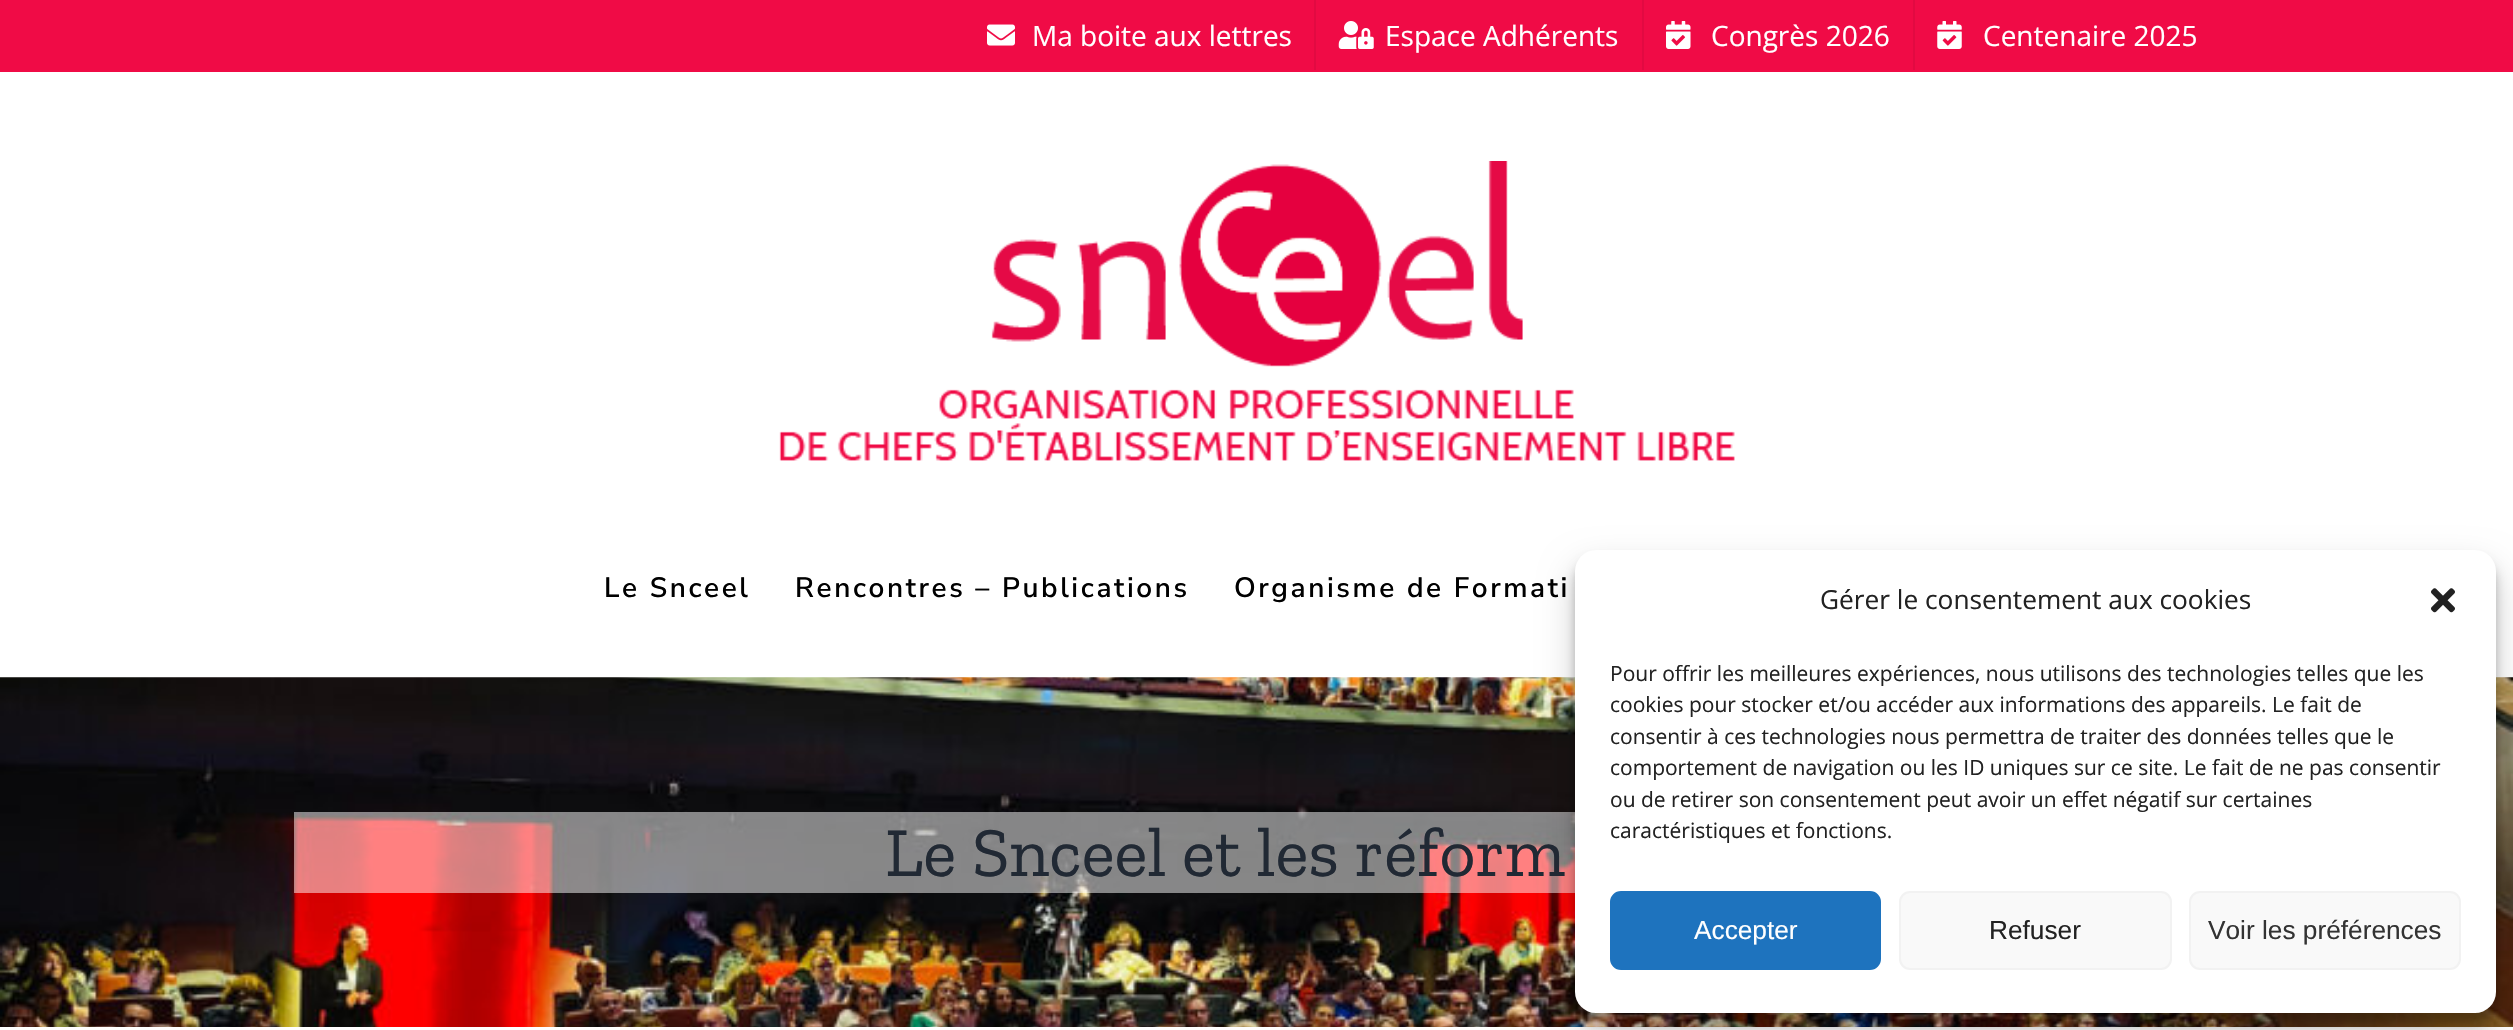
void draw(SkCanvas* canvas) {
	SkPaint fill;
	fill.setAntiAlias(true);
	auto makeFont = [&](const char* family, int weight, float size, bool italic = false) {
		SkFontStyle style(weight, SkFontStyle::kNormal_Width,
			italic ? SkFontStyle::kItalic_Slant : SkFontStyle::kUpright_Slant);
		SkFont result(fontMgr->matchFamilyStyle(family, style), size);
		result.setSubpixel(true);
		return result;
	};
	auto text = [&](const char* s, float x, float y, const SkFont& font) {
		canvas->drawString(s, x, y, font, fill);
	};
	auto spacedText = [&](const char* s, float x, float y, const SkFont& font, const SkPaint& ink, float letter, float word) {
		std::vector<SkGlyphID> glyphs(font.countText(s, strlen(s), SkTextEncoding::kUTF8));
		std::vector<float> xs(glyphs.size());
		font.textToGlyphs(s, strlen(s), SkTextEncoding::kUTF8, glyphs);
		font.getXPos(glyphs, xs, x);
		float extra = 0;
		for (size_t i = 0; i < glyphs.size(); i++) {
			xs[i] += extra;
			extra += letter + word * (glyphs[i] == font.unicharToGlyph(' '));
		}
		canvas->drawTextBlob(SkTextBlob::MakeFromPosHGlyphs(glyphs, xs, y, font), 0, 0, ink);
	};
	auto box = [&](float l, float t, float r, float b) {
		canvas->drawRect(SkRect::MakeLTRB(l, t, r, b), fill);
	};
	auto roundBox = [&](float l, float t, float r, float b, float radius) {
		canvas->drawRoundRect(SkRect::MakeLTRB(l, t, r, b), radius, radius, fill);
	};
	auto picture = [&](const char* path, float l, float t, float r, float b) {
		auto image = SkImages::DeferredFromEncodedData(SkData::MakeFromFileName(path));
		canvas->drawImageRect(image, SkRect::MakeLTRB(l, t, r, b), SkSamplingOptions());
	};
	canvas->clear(0xFFFFFFFF);
	fill.setColor(0xFFF00B46);
	box(0, 0, 2513, 72);
	picture("image0.png", 987, 24, 1015, 46);
	fill.setColor(0xFFE20A42);
	box(1314, 0, 1316, 70);
	picture("image1.png", 1338, 21, 1374, 49);
	box(1642, 0, 1644, 70);
	picture("image2.png", 1666, 21, 1691, 49);
	box(1913, 0, 1915, 70);
	picture("image3.png", 1937, 21, 1962, 49);
	picture("image4.png", 779, 161, 1735, 461);
	picture("image5.png", 0, 677, 2513, 1027);
	fill.setColor(0x80FFFFFF);
	box(294, 812, 1575, 893);
	fill.setColor(0x3B000000);
	fill.setMaskFilter(SkMaskFilter::MakeBlur(kNormal_SkBlurStyle, 5));
	canvas->drawRoundRect(SkRect::MakeLTRB(1575, 560, 2496, 1024), 21, 21, fill);
	fill.setMaskFilter(nullptr);
	fill.setColor(0x30000000);
	fill.setMaskFilter(SkMaskFilter::MakeBlur(kNormal_SkBlurStyle, 17.5f));
	canvas->drawRoundRect(SkRect::MakeLTRB(1575, 567, 2496, 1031), 21, 21, fill);
	fill.setMaskFilter(nullptr);
	fill.setColor(0xFFFFFFFF);
	roundBox(1575, 550, 2496, 1013, 21);
	picture("image6.png", 2431, 588, 2455, 613);
	fill.setColor(0xFF1E73BE);
	canvas->drawRoundRect(SkRect::MakeLTRB(1611, 892, 1880, 969), 10, 10, fill);
	fill.setStyle(SkPaint::kStroke_Style);
	fill.setStrokeWidth(2);
	canvas->drawRoundRect(SkRect::MakeLTRB(1611, 892, 1880, 969), 10, 10, fill);
	fill.setStyle(SkPaint::kFill_Style);
	fill.setColor(0xFFF9F9F9);
	canvas->drawRoundRect(SkRect::MakeLTRB(1900, 892, 2171, 969), 10, 10, fill);
	fill.setStyle(SkPaint::kStroke_Style);
	fill.setColor(0xFFF2F2F2);
	canvas->drawRoundRect(SkRect::MakeLTRB(1900, 892, 2171, 969), 10, 10, fill);
	fill.setStyle(SkPaint::kFill_Style);
	fill.setColor(0xFFF9F9F9);
	canvas->drawRoundRect(SkRect::MakeLTRB(2190, 892, 2460, 969), 10, 10, fill);
	fill.setStyle(SkPaint::kStroke_Style);
	fill.setColor(0xFFF2F2F2);
	canvas->drawRoundRect(SkRect::MakeLTRB(2190, 892, 2460, 969), 10, 10, fill);
	auto font1 = makeFont("Open Sans", 400, 28);
	fill.setStyle(SkPaint::kFill_Style);
	fill.setColor(0xFFFFFFFF);
	text("Ma boite aux lettres", 1032, 46, font1);
	text("Espace Adhérents", 1385, 46, font1);
	text("Congrès 2026", 1711, 46, font1);
	text("Centenaire 2025", 1983, 46, font1);
	auto font2 = makeFont("Nunito Sans", 200, 28);
	fill.setColor(0xFF000000);
	spacedText("Le Snceel", 604, 597, font2, fill, 2.6f, 0);
	spacedText("Rencontres – Publications", 795, 597, font2, fill, 2.6f, 0);
	spacedText("Organisme de Formati", 1234, 597, font2, fill, 2.6f, 0);
	auto font3 = makeFont("Zilla Slab", 400, 70);
	fill.setColor(0xFF212934);
	text("Le Snceel et les réform", 885, 876, font3);
	auto font4 = makeFont("Open Sans", 400, 26.25f);
	fill.setColor(0xFF222222);
	text("Gérer le consentement aux cookies", 1820, 609, font4);
	auto font5 = makeFont("Open Sans", 400, 21);
	text("Pour offrir les meilleures expériences, nous utilisons des technologies telles que les", 1610, 681, font5);
	text("cookies pour stocker et/ou accéder aux informations des appareils. Le fait de", 1610, 712, font5);
	text("consentir à ces technologies nous permettra de traiter des données telles que le", 1610, 744, font5);
	text("comportement de navigation ou les ID uniques sur ce site. Le fait de ne pas consentir", 1610, 775, font5);
	text("ou de retirer son consentement peut avoir un effet négatif sur certaines", 1610, 807, font5);
	text("caractéristiques et fonctions.", 1610, 838, font5);
	auto font6 = makeFont("Liberation Sans", 400, 26.25f);
	fill.setColor(0xFFFFFFFF);
	text("Accepter", 1694, 939, font6);
	fill.setColor(0xFF222222);
	text("Refuser", 1989, 939, font6);
	fill.setColor(0xFF333333);
	text("Voir les préférences", 2208, 939, font6);
}
